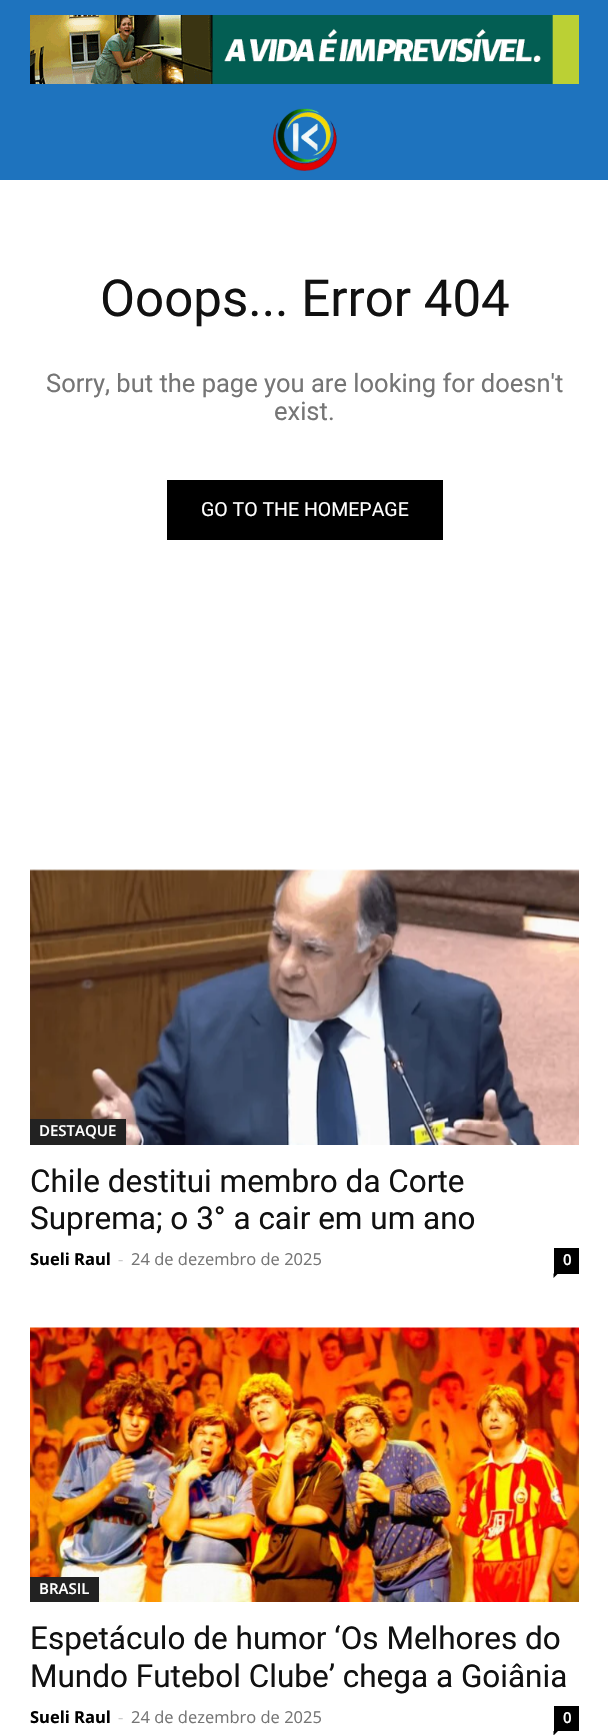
void draw(SkCanvas* canvas) {
	SkPaint fill;
	fill.setAntiAlias(true);
	auto makeFont = [&](const char* family, int weight, float size, bool italic = false) {
		SkFontStyle style(weight, SkFontStyle::kNormal_Width,
			italic ? SkFontStyle::kItalic_Slant : SkFontStyle::kUpright_Slant);
		SkFont result(fontMgr->matchFamilyStyle(family, style), size);
		result.setSubpixel(true);
		return result;
	};
	auto text = [&](const char* s, float x, float y, const SkFont& font) {
		canvas->drawString(s, x, y, font, fill);
	};
	auto box = [&](float l, float t, float r, float b) {
		canvas->drawRect(SkRect::MakeLTRB(l, t, r, b), fill);
	};
	auto picture = [&](const char* path, float l, float t, float r, float b) {
		auto image = SkImages::DeferredFromEncodedData(SkData::MakeFromFileName(path));
		canvas->drawImageRect(image, SkRect::MakeLTRB(l, t, r, b), SkSamplingOptions());
	};
	canvas->clear(0xFFFFFFFF);
	fill.setColor(0xFF1E73BE);
	box(0, 0, 608, 180);
	picture("image0.png", 30, 15, 579, 84);
	picture("image1.png", 272, 108, 337, 171);
	fill.setColor(0xFF000000);
	box(167, 480, 443, 540);
	picture("image2.png", 30, 869, 579, 1145);
	fill.setColor(0xFF222222);
	box(30, 1119, 126, 1145);
	fill.setColor(0xFF000000);
	box(554, 1248, 579, 1274);
	canvas->drawPath(SkPathBuilder().moveTo(553.5f, 1273.5f).lineTo(558, 1273.5f).lineTo(553.5f, 1278).close().detach(), fill);
	picture("image3.png", 30, 1327, 579, 1602);
	fill.setColor(0xFF222222);
	box(30, 1577, 99, 1602);
	fill.setColor(0xFF000000);
	box(554, 1706, 579, 1731);
	canvas->drawPath(SkPathBuilder().moveTo(553.5f, 1731).lineTo(558, 1731).lineTo(553.5f, 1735.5f).close().detach(), fill);
	auto font1 = makeFont("Roboto", 400, 51);
	fill.setColor(0xFF111111);
	text("Ooops... Error 404", 100, 316, font1);
	auto font2 = makeFont("Roboto", 400, 25.5f);
	fill.setColor(0xFF757575);
	text("Sorry, but the page you are looking for doesn't", 46, 392, font2);
	text("exist.", 274, 420, font2);
	auto font3 = makeFont("Roboto", 400, 19.5f);
	fill.setColor(0xFFFFFFFF);
	text("GO TO THE HOMEPAGE", 201, 516, font3);
	auto font4 = makeFont("Open Sans", 600, 15);
	text("DESTAQUE", 39, 1136, font4);
	auto font5 = makeFont("Roboto", 400, 31.5f);
	fill.setColor(0xFF111111);
	text("Chile destitui membro da Corte", 30, 1192, font5);
	text("Suprema; o 3° a cair em um ano", 30, 1229, font5);
	auto font6 = makeFont("Open Sans", 700, 16.5f);
	fill.setColor(0xFF000000);
	text("Sueli Raul", 30, 1265, font6);
	auto font7 = makeFont("Open Sans", 400, 16.5f);
	fill.setColor(0xFFCCCCCC);
	text("-", 118, 1265, font7);
	fill.setColor(0xFF757575);
	text("24 de dezembro de 2025", 131, 1265, font7);
	fill.setColor(0xFFFFFFFF);
	text("0", 563, 1265, font4);
	text("BRASIL", 39, 1594, font4);
	fill.setColor(0xFF111111);
	text("Espetáculo de humor ‘Os Melhores do", 30, 1649, font5);
	text("Mundo Futebol Clube’ chega a Goiânia", 30, 1687, font5);
	fill.setColor(0xFF000000);
	text("Sueli Raul", 30, 1723, font6);
	fill.setColor(0xFFCCCCCC);
	text("-", 118, 1723, font7);
	fill.setColor(0xFF757575);
	text("24 de dezembro de 2025", 131, 1723, font7);
	fill.setColor(0xFFFFFFFF);
	text("0", 563, 1723, font4);
}
